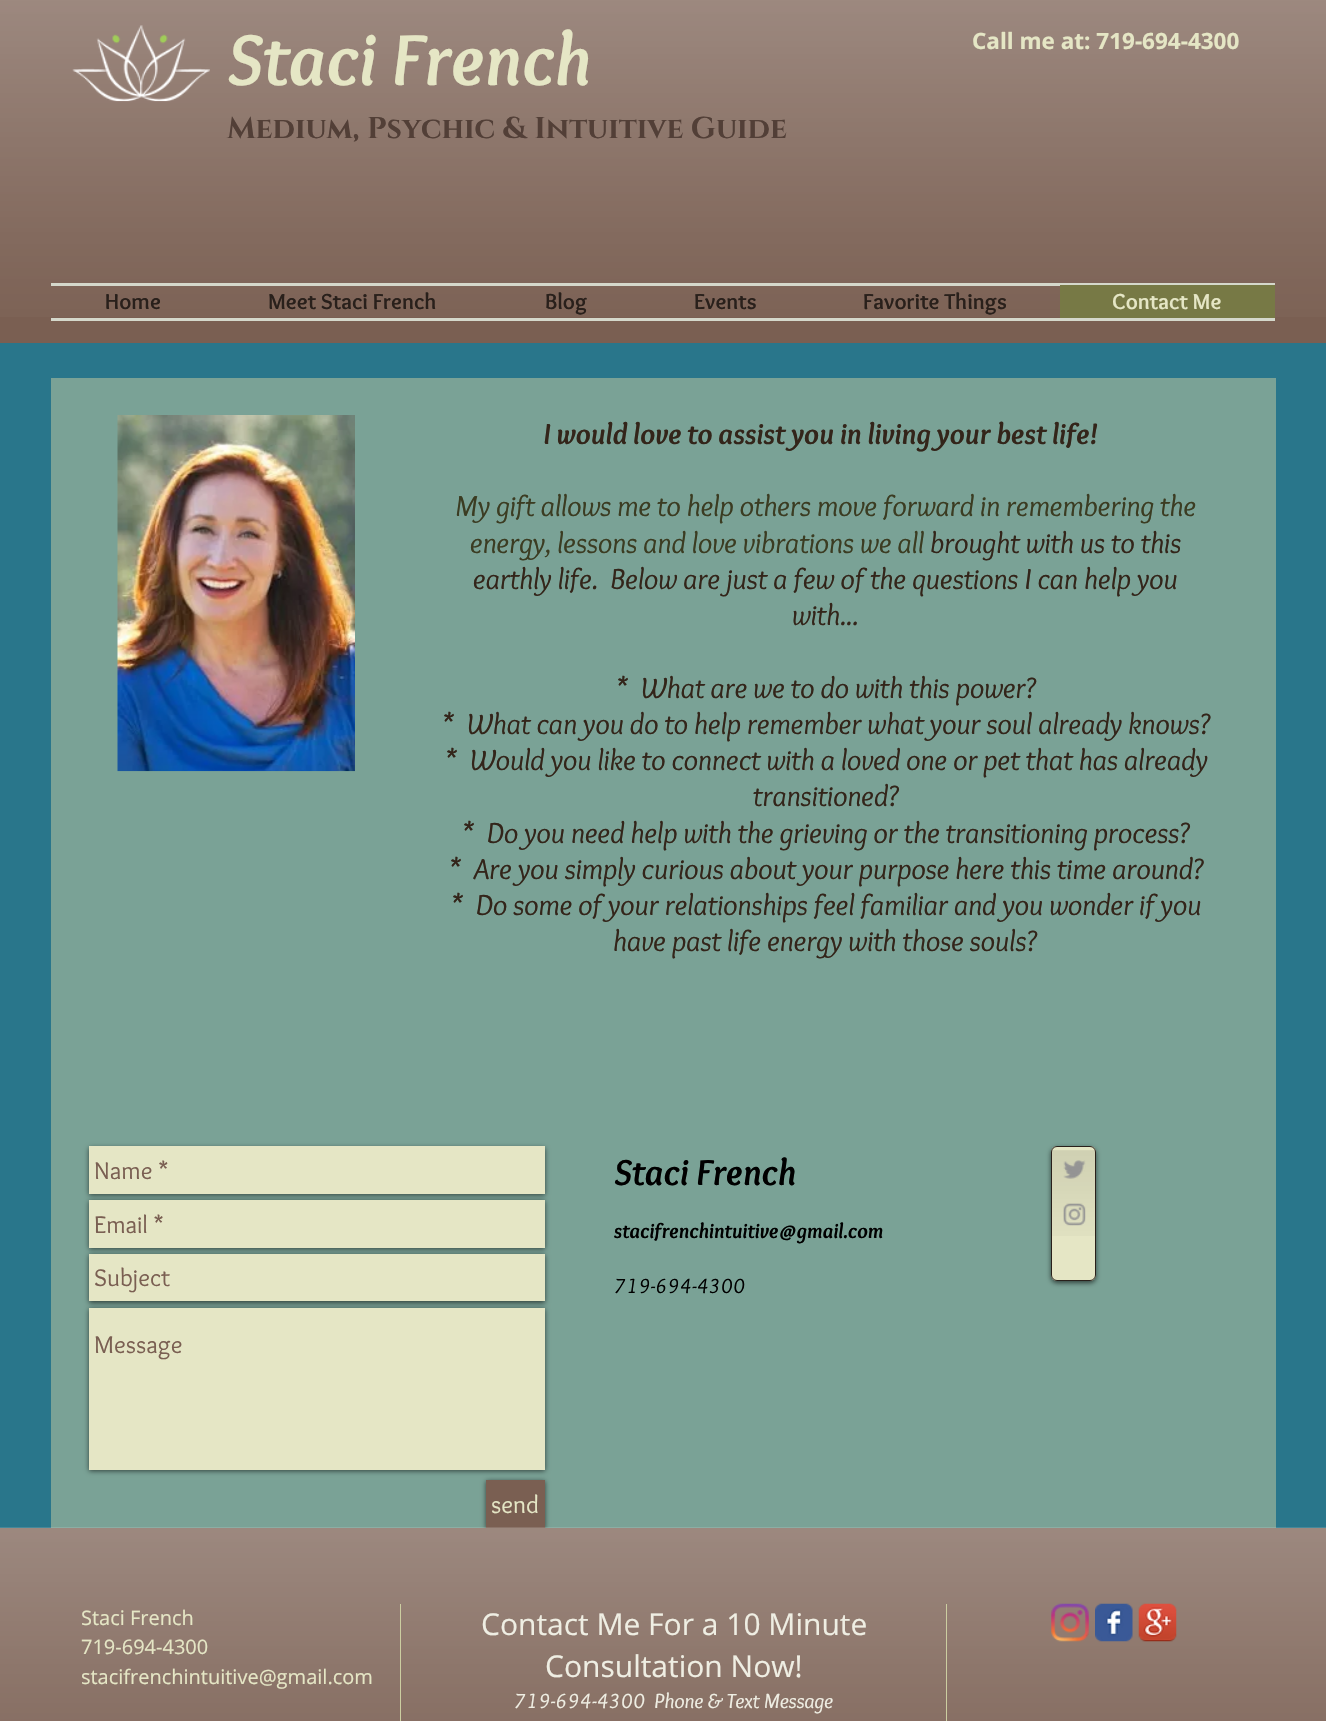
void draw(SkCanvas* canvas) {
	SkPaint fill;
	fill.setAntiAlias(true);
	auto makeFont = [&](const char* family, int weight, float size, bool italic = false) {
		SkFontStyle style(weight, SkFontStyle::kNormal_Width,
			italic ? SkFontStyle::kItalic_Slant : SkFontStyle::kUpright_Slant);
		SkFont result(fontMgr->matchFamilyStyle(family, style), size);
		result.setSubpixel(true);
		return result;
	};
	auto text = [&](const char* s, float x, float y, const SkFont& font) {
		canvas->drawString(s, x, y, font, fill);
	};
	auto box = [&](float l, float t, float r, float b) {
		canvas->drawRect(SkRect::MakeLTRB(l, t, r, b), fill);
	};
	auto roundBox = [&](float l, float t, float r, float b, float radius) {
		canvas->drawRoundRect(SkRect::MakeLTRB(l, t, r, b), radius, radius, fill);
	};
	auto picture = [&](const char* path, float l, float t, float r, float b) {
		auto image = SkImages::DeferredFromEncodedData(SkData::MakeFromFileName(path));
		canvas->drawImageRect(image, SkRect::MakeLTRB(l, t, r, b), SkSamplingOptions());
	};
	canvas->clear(0xFF29768B);
	fill.setColor(0xFF7A5F52);
	box(0, 0, 1326, 343);
	picture("image0.png", 0, 0, 1326, 317);
	picture("image1.png", 72, 25, 210, 102);
	fill.setColor(0xFFD5D8CB);
	box(51, 283, 1275, 286);
	box(51, 318, 1275, 321);
	fill.setColor(0xFF777945);
	box(1060, 285, 1275, 318);
	fill.setColor(0xFF7AA296);
	box(51, 378, 1276, 1528);
	picture("image2.png", 117, 415, 355, 772);
	fill.setColor(0x99000000);
	fill.setMaskFilter(SkMaskFilter::MakeBlur(kNormal_SkBlurStyle, 2.5f));
	canvas->drawRect(SkRect::MakeLTRB(89, 1148, 545, 1195), fill);
	fill.setMaskFilter(nullptr);
	fill.setColor(0xFFE5E6C5);
	box(89, 1146, 545, 1194);
	fill.setColor(0x99000000);
	fill.setMaskFilter(SkMaskFilter::MakeBlur(kNormal_SkBlurStyle, 2.5f));
	canvas->drawRect(SkRect::MakeLTRB(89, 1201, 545, 1249), fill);
	fill.setMaskFilter(nullptr);
	fill.setColor(0xFFE5E6C5);
	box(89, 1200, 545, 1248);
	fill.setColor(0x99000000);
	fill.setMaskFilter(SkMaskFilter::MakeBlur(kNormal_SkBlurStyle, 2.5f));
	canvas->drawRect(SkRect::MakeLTRB(89, 1255, 545, 1303), fill);
	fill.setMaskFilter(nullptr);
	fill.setColor(0xFFE5E6C5);
	box(89, 1254, 545, 1301);
	fill.setColor(0x99000000);
	fill.setMaskFilter(SkMaskFilter::MakeBlur(kNormal_SkBlurStyle, 2.5f));
	canvas->drawRect(SkRect::MakeLTRB(89, 1309, 545, 1471), fill);
	fill.setMaskFilter(nullptr);
	fill.setColor(0xFFE5E6C5);
	box(89, 1308, 545, 1470);
	fill.setColor(0x99000000);
	fill.setMaskFilter(SkMaskFilter::MakeBlur(kNormal_SkBlurStyle, 2.5f));
	canvas->drawRect(SkRect::MakeLTRB(486, 1481, 545, 1529), fill);
	fill.setMaskFilter(nullptr);
	fill.setColor(0xFF7A5F52);
	box(486, 1480, 545, 1528);
	fill.setColor(0x99000000);
	fill.setMaskFilter(SkMaskFilter::MakeBlur(kNormal_SkBlurStyle, 2.5f));
	canvas->drawRoundRect(SkRect::MakeLTRB(1051, 1148, 1096, 1283), 6, 6, fill);
	fill.setMaskFilter(nullptr);
	fill.setColor(0xFFE5E6C5);
	roundBox(1051, 1146, 1096, 1281, 6);
	picture("image3.png", 1051, 1150, 1096, 1236);
	fill.setStyle(SkPaint::kStroke_Style);
	fill.setStrokeWidth(1);
	fill.setColor(0xFF29201B);
	canvas->drawRoundRect(SkRect::MakeLTRB(1051.5f, 1146.5f, 1095.5f, 1280.5f), 5.5f, 5.5f, fill);
	picture("image4.png", 1063, 1160, 1086, 1179);
	picture("image5.png", 1063, 1203, 1086, 1226);
	fill.setStyle(SkPaint::kFill_Style);
	fill.setColor(0xFF7A5F52);
	box(0, 1528, 1326, 1721);
	picture("image6.png", 0, 1527, 1326, 1721);
	fill.setColor(0xFFCCCEA1);
	box(400, 1604, 401, 1721);
	box(946, 1604, 947, 1721);
	picture("image7.png", 1051, 1603, 1089, 1642);
	picture("image8.png", 1095, 1603, 1133, 1642);
	picture("image9.png", 1138, 1603, 1177, 1642);
	auto font1 = makeFont("Overlock", 700, 75, true);
	fill.setColor(0xFFE5E6C5);
	text("Staci French", 227, 85, font1);
	auto font2 = makeFont("Open Sans", 700, 22.5f);
	text("Call me at: 719-694-4300", 972, 49, font2);
	auto font3 = makeFont("Cinzel", 700, 30);
	fill.setColor(0xFF523F37);
	text("Medium, Psychic & Intuitive Guide", 227, 138, font3);
	auto font4 = makeFont("Overlock", 700, 22.5f);
	fill.setColor(0xFF29201B);
	text("Home", 105, 309, font4);
	text("Meet Staci French", 268, 309, font4);
	text("Blog", 545, 309, font4);
	text("Events", 694, 309, font4);
	text("Favorite Things", 863, 309, font4);
	fill.setColor(0xFFE5E6C5);
	text("Contact Me", 1112, 309, font4);
	auto font5 = makeFont("Overlock", 700, 30, true);
	fill.setColor(0xFF33251A);
	text("I would love to assist you in living your best life!", 543, 444, font5);
	auto font6 = makeFont("Overlock", 400, 30, true);
	fill.setColor(0xFF3B3C22);
	text("My gift allows me to help others move forward in remembering the", 455, 516, font6);
	text("energy, lessons and love vibrations we all", 470, 553, font6);
	fill.setColor(0xFF33251A);
	text("brought with us to this", 930, 553, font6);
	text("earthly life.  Below are just a few of the questions I can help you", 473, 589, font6);
	text("with...", 792, 625, font6);
	text("*  What are we to do with this power?", 615, 698, font6);
	text("*  What can you do to help remember what your soul already knows?", 441, 734, font6);
	text("*  Would you like to connect with a loved one or pet that has already", 444, 770, font6);
	text("transitioned?", 753, 806, font6);
	text("*  Do you need help with the grieving or the transitioning process?", 461, 843, font6);
	text("*  Are you simply curious about your purpose here this time around?", 448, 879, font6);
	text("*  Do some of your relationships feel familiar and you wonder if you", 450, 915, font6);
	text("have past life energy with those souls?", 613, 951, font6);
	auto font7 = makeFont("Overlock", 400, 25);
	fill.setColor(0xFF7A5F52);
	text("Name *", 94, 1179, font7);
	text("Email *", 94, 1233, font7);
	text("Subject", 94, 1286, font7);
	text("Message", 94, 1353, font7);
	fill.setColor(0xFFE5E6C5);
	text("send", 491, 1513, font7);
	auto font8 = makeFont("Overlock", 700, 37.5f, true);
	fill.setColor(0xFF000000);
	text("Staci French", 614, 1185, font8);
	auto font9 = makeFont("Overlock", 700, 21.25f, true);
	text("stacifrenchintuitive@gmail.com", 614, 1238, font9);
	auto font10 = makeFont("Overlock", 400, 21.25f, true);
	text("719-694-4300", 614, 1293, font10);
	auto font11 = makeFont("Open Sans", 400, 20);
	fill.setColor(0xFFE5E6C5);
	text("Staci French", 81, 1625, font11);
	text("719-694-4300", 81, 1654, font11);
	text("stacifrenchintuitive@gmail.com", 81, 1684, font11);
	auto font12 = makeFont("Open Sans", 400, 30);
	fill.setColor(0xFFEFEEE3);
	text("Contact Me For a 10 Minute", 481, 1635, font12);
	text("Consultation Now!", 545, 1677, font12);
	text("719-694-4300  Phone & Text Message", 514, 1708, font10);
}
